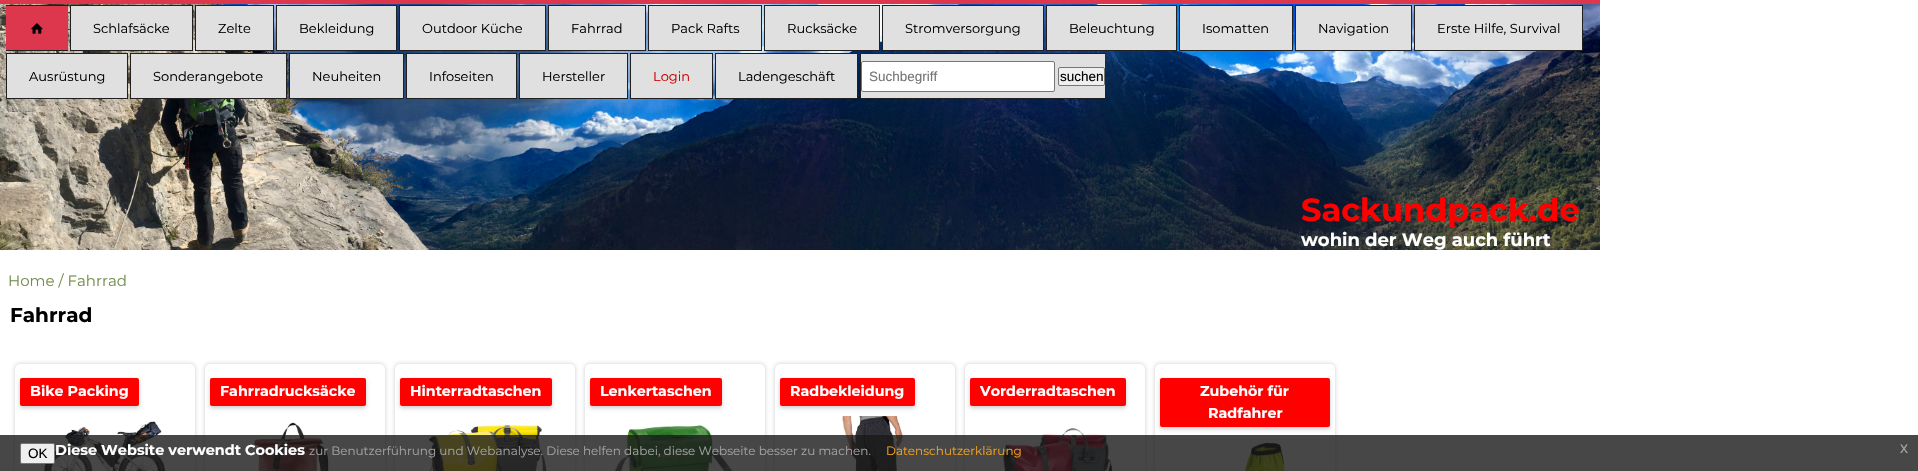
void draw(SkCanvas* canvas) {
	SkPaint fill;
	fill.setAntiAlias(true);
	auto makeFont = [&](const char* family, int weight, float size, bool italic = false) {
		SkFontStyle style(weight, SkFontStyle::kNormal_Width,
			italic ? SkFontStyle::kItalic_Slant : SkFontStyle::kUpright_Slant);
		SkFont result(fontMgr->matchFamilyStyle(family, style), size);
		result.setSubpixel(true);
		return result;
	};
	auto text = [&](const char* s, float x, float y, const SkFont& font) {
		canvas->drawString(s, x, y, font, fill);
	};
	auto box = [&](float l, float t, float r, float b) {
		canvas->drawRect(SkRect::MakeLTRB(l, t, r, b), fill);
	};
	auto roundBox = [&](float l, float t, float r, float b, float radius) {
		canvas->drawRoundRect(SkRect::MakeLTRB(l, t, r, b), radius, radius, fill);
	};
	auto picture = [&](const char* path, float l, float t, float r, float b) {
		auto image = SkImages::DeferredFromEncodedData(SkData::MakeFromFileName(path));
		canvas->drawImageRect(image, SkRect::MakeLTRB(l, t, r, b), SkSamplingOptions());
	};
	canvas->clear(0xFFFFFFFF);
	picture("image0.png", 0, 4, 1600, 250);
	fill.setColor(0xFFDD374E);
	box(0, 0, 1600, 4);
	box(6, 6, 68, 50);
	fill.setColor(0xFF202020);
	box(6, 5, 68, 6);
	box(6, 50, 68, 51);
	picture("image1.png", 31, 23, 43, 34);
	fill.setColor(0xFFE0E0E0);
	canvas->drawRect(SkRect::MakeLTRB(70.5f, 5.5f, 192.5f, 50.5f), fill);
	fill.setStyle(SkPaint::kStroke_Style);
	fill.setStrokeWidth(1);
	fill.setColor(0xFF202020);
	canvas->drawRect(SkRect::MakeLTRB(70.5f, 5.5f, 192.5f, 50.5f), fill);
	fill.setStyle(SkPaint::kFill_Style);
	fill.setColor(0xFFE0E0E0);
	canvas->drawRect(SkRect::MakeLTRB(195.5f, 5.5f, 273.5f, 50.5f), fill);
	fill.setStyle(SkPaint::kStroke_Style);
	fill.setColor(0xFF202020);
	canvas->drawRect(SkRect::MakeLTRB(195.5f, 5.5f, 273.5f, 50.5f), fill);
	fill.setStyle(SkPaint::kFill_Style);
	fill.setColor(0xFFE0E0E0);
	canvas->drawRect(SkRect::MakeLTRB(276.5f, 5.5f, 396.5f, 50.5f), fill);
	fill.setStyle(SkPaint::kStroke_Style);
	fill.setColor(0xFF202020);
	canvas->drawRect(SkRect::MakeLTRB(276.5f, 5.5f, 396.5f, 50.5f), fill);
	fill.setStyle(SkPaint::kFill_Style);
	fill.setColor(0xFFE0E0E0);
	canvas->drawRect(SkRect::MakeLTRB(399.5f, 5.5f, 545.5f, 50.5f), fill);
	fill.setStyle(SkPaint::kStroke_Style);
	fill.setColor(0xFF202020);
	canvas->drawRect(SkRect::MakeLTRB(399.5f, 5.5f, 545.5f, 50.5f), fill);
	fill.setStyle(SkPaint::kFill_Style);
	fill.setColor(0xFFE0E0E0);
	canvas->drawRect(SkRect::MakeLTRB(548.5f, 5.5f, 645.5f, 50.5f), fill);
	fill.setStyle(SkPaint::kStroke_Style);
	fill.setColor(0xFF202020);
	canvas->drawRect(SkRect::MakeLTRB(548.5f, 5.5f, 645.5f, 50.5f), fill);
	fill.setStyle(SkPaint::kFill_Style);
	fill.setColor(0xFFE0E0E0);
	canvas->drawRect(SkRect::MakeLTRB(648.5f, 5.5f, 761.5f, 50.5f), fill);
	fill.setStyle(SkPaint::kStroke_Style);
	fill.setColor(0xFF202020);
	canvas->drawRect(SkRect::MakeLTRB(648.5f, 5.5f, 761.5f, 50.5f), fill);
	fill.setStyle(SkPaint::kFill_Style);
	fill.setColor(0xFFE0E0E0);
	canvas->drawRect(SkRect::MakeLTRB(764.5f, 5.5f, 879.5f, 50.5f), fill);
	fill.setStyle(SkPaint::kStroke_Style);
	fill.setColor(0xFF202020);
	canvas->drawRect(SkRect::MakeLTRB(764.5f, 5.5f, 879.5f, 50.5f), fill);
	fill.setStyle(SkPaint::kFill_Style);
	fill.setColor(0xFFE0E0E0);
	canvas->drawRect(SkRect::MakeLTRB(882.5f, 5.5f, 1043.5f, 50.5f), fill);
	fill.setStyle(SkPaint::kStroke_Style);
	fill.setColor(0xFF202020);
	canvas->drawRect(SkRect::MakeLTRB(882.5f, 5.5f, 1043.5f, 50.5f), fill);
	fill.setStyle(SkPaint::kFill_Style);
	fill.setColor(0xFFE0E0E0);
	canvas->drawRect(SkRect::MakeLTRB(1046.5f, 5.5f, 1176.5f, 50.5f), fill);
	fill.setStyle(SkPaint::kStroke_Style);
	fill.setColor(0xFF202020);
	canvas->drawRect(SkRect::MakeLTRB(1046.5f, 5.5f, 1176.5f, 50.5f), fill);
	fill.setStyle(SkPaint::kFill_Style);
	fill.setColor(0xFFE0E0E0);
	canvas->drawRect(SkRect::MakeLTRB(1179.5f, 5.5f, 1292.5f, 50.5f), fill);
	fill.setStyle(SkPaint::kStroke_Style);
	fill.setColor(0xFF202020);
	canvas->drawRect(SkRect::MakeLTRB(1179.5f, 5.5f, 1292.5f, 50.5f), fill);
	fill.setStyle(SkPaint::kFill_Style);
	fill.setColor(0xFFE0E0E0);
	canvas->drawRect(SkRect::MakeLTRB(1295.5f, 5.5f, 1411.5f, 50.5f), fill);
	fill.setStyle(SkPaint::kStroke_Style);
	fill.setColor(0xFF202020);
	canvas->drawRect(SkRect::MakeLTRB(1295.5f, 5.5f, 1411.5f, 50.5f), fill);
	fill.setStyle(SkPaint::kFill_Style);
	fill.setColor(0xFFE0E0E0);
	canvas->drawRect(SkRect::MakeLTRB(1414.5f, 5.5f, 1582.5f, 50.5f), fill);
	fill.setStyle(SkPaint::kStroke_Style);
	fill.setColor(0xFF202020);
	canvas->drawRect(SkRect::MakeLTRB(1414.5f, 5.5f, 1582.5f, 50.5f), fill);
	fill.setStyle(SkPaint::kFill_Style);
	fill.setColor(0xFFE0E0E0);
	canvas->drawRect(SkRect::MakeLTRB(6.5f, 53.5f, 127.5f, 98.5f), fill);
	fill.setStyle(SkPaint::kStroke_Style);
	fill.setColor(0xFF202020);
	canvas->drawRect(SkRect::MakeLTRB(6.5f, 53.5f, 127.5f, 98.5f), fill);
	fill.setStyle(SkPaint::kFill_Style);
	fill.setColor(0xFFE0E0E0);
	canvas->drawRect(SkRect::MakeLTRB(130.5f, 53.5f, 286.5f, 98.5f), fill);
	fill.setStyle(SkPaint::kStroke_Style);
	fill.setColor(0xFF202020);
	canvas->drawRect(SkRect::MakeLTRB(130.5f, 53.5f, 286.5f, 98.5f), fill);
	fill.setStyle(SkPaint::kFill_Style);
	fill.setColor(0xFFE0E0E0);
	canvas->drawRect(SkRect::MakeLTRB(289.5f, 53.5f, 403.5f, 98.5f), fill);
	fill.setStyle(SkPaint::kStroke_Style);
	fill.setColor(0xFF202020);
	canvas->drawRect(SkRect::MakeLTRB(289.5f, 53.5f, 403.5f, 98.5f), fill);
	fill.setStyle(SkPaint::kFill_Style);
	fill.setColor(0xFFE0E0E0);
	canvas->drawRect(SkRect::MakeLTRB(406.5f, 53.5f, 516.5f, 98.5f), fill);
	fill.setStyle(SkPaint::kStroke_Style);
	fill.setColor(0xFF202020);
	canvas->drawRect(SkRect::MakeLTRB(406.5f, 53.5f, 516.5f, 98.5f), fill);
	fill.setStyle(SkPaint::kFill_Style);
	fill.setColor(0xFFE0E0E0);
	canvas->drawRect(SkRect::MakeLTRB(519.5f, 53.5f, 627.5f, 98.5f), fill);
	fill.setStyle(SkPaint::kStroke_Style);
	fill.setColor(0xFF202020);
	canvas->drawRect(SkRect::MakeLTRB(519.5f, 53.5f, 627.5f, 98.5f), fill);
	fill.setStyle(SkPaint::kFill_Style);
	fill.setColor(0xFFE0E0E0);
	canvas->drawRect(SkRect::MakeLTRB(630.5f, 53.5f, 712.5f, 98.5f), fill);
	fill.setStyle(SkPaint::kStroke_Style);
	fill.setColor(0xFF202020);
	canvas->drawRect(SkRect::MakeLTRB(630.5f, 53.5f, 712.5f, 98.5f), fill);
	fill.setStyle(SkPaint::kFill_Style);
	fill.setColor(0xFFE0E0E0);
	canvas->drawRect(SkRect::MakeLTRB(715.5f, 53.5f, 857.5f, 98.5f), fill);
	fill.setStyle(SkPaint::kStroke_Style);
	fill.setColor(0xFF202020);
	canvas->drawRect(SkRect::MakeLTRB(715.5f, 53.5f, 857.5f, 98.5f), fill);
	fill.setStyle(SkPaint::kFill_Style);
	fill.setColor(0xFFE0E0E0);
	box(861, 54, 1105, 98);
	fill.setColor(0xFF202020);
	box(860, 53, 1105, 54);
	box(860, 98, 1105, 99);
	box(860, 53, 861, 99);
	fill.setColor(0xFFFFFFFF);
	canvas->drawRoundRect(SkRect::MakeLTRB(861.5f, 61.5f, 1054.5f, 91.5f), 1.5f, 1.5f, fill);
	fill.setStyle(SkPaint::kStroke_Style);
	fill.setColor(0xFF767676);
	canvas->drawRoundRect(SkRect::MakeLTRB(861.5f, 61.5f, 1054.5f, 91.5f), 1.5f, 1.5f, fill);
	fill.setStyle(SkPaint::kFill_Style);
	fill.setColor(0xFFEFEFEF);
	canvas->drawRoundRect(SkRect::MakeLTRB(1058.5f, 67.5f, 1104.5f, 85.5f), 1.5f, 1.5f, fill);
	fill.setStyle(SkPaint::kStroke_Style);
	fill.setColor(0xFF767676);
	canvas->drawRoundRect(SkRect::MakeLTRB(1058.5f, 67.5f, 1104.5f, 85.5f), 1.5f, 1.5f, fill);
	fill.setStyle(SkPaint::kFill_Style);
	fill.setColor(0x33000000);
	fill.setMaskFilter(SkMaskFilter::MakeBlur(kNormal_SkBlurStyle, 2));
	canvas->drawRoundRect(SkRect::MakeLTRB(15, 364, 195, 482), 5, 5, fill);
	fill.setMaskFilter(nullptr);
	fill.setColor(0xFFFFFFFF);
	roundBox(15, 364, 195, 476, 5);
	fill.setColor(0x33000000);
	fill.setMaskFilter(SkMaskFilter::MakeBlur(kNormal_SkBlurStyle, 2));
	canvas->drawRoundRect(SkRect::MakeLTRB(20, 380, 139, 408), 2, 2, fill);
	fill.setMaskFilter(nullptr);
	fill.setColor(0xFFFF0000);
	roundBox(20, 378, 139, 406, 2);
	picture("image2.png", 44, 421, 166, 471);
	fill.setColor(0x33000000);
	fill.setMaskFilter(SkMaskFilter::MakeBlur(kNormal_SkBlurStyle, 2));
	canvas->drawRoundRect(SkRect::MakeLTRB(205, 364, 385, 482), 5, 5, fill);
	fill.setMaskFilter(nullptr);
	fill.setColor(0xFFFFFFFF);
	roundBox(205, 364, 385, 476, 5);
	fill.setColor(0x33000000);
	fill.setMaskFilter(SkMaskFilter::MakeBlur(kNormal_SkBlurStyle, 2));
	canvas->drawRoundRect(SkRect::MakeLTRB(210, 380, 366, 408), 2, 2, fill);
	fill.setMaskFilter(nullptr);
	fill.setColor(0xFFFF0000);
	roundBox(210, 378, 366, 406, 2);
	picture("image3.png", 254, 422, 329, 471);
	fill.setColor(0x33000000);
	fill.setMaskFilter(SkMaskFilter::MakeBlur(kNormal_SkBlurStyle, 2));
	canvas->drawRoundRect(SkRect::MakeLTRB(395, 364, 575, 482), 5, 5, fill);
	fill.setMaskFilter(nullptr);
	fill.setColor(0xFFFFFFFF);
	roundBox(395, 364, 575, 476, 5);
	fill.setColor(0x33000000);
	fill.setMaskFilter(SkMaskFilter::MakeBlur(kNormal_SkBlurStyle, 2));
	canvas->drawRoundRect(SkRect::MakeLTRB(400, 380, 552, 408), 2, 2, fill);
	fill.setMaskFilter(nullptr);
	fill.setColor(0xFFFF0000);
	roundBox(400, 378, 552, 406, 2);
	picture("image4.png", 428, 425, 547, 471);
	fill.setColor(0x33000000);
	fill.setMaskFilter(SkMaskFilter::MakeBlur(kNormal_SkBlurStyle, 2));
	canvas->drawRoundRect(SkRect::MakeLTRB(585, 364, 765, 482), 5, 5, fill);
	fill.setMaskFilter(nullptr);
	fill.setColor(0xFFFFFFFF);
	roundBox(585, 364, 765, 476, 5);
	fill.setColor(0x33000000);
	fill.setMaskFilter(SkMaskFilter::MakeBlur(kNormal_SkBlurStyle, 2));
	canvas->drawRoundRect(SkRect::MakeLTRB(590, 380, 722, 408), 2, 2, fill);
	fill.setMaskFilter(nullptr);
	fill.setColor(0xFFFF0000);
	roundBox(590, 378, 722, 406, 2);
	picture("image5.png", 614, 425, 733, 471);
	fill.setColor(0x33000000);
	fill.setMaskFilter(SkMaskFilter::MakeBlur(kNormal_SkBlurStyle, 2));
	canvas->drawRoundRect(SkRect::MakeLTRB(775, 364, 955, 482), 5, 5, fill);
	fill.setMaskFilter(nullptr);
	fill.setColor(0xFFFFFFFF);
	roundBox(775, 364, 955, 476, 5);
	fill.setColor(0x33000000);
	fill.setMaskFilter(SkMaskFilter::MakeBlur(kNormal_SkBlurStyle, 2));
	canvas->drawRoundRect(SkRect::MakeLTRB(780, 380, 915, 408), 2, 2, fill);
	fill.setMaskFilter(nullptr);
	fill.setColor(0xFFFF0000);
	roundBox(780, 378, 915, 406, 2);
	picture("image6.png", 842, 416, 903, 471);
	fill.setColor(0x33000000);
	fill.setMaskFilter(SkMaskFilter::MakeBlur(kNormal_SkBlurStyle, 2));
	canvas->drawRoundRect(SkRect::MakeLTRB(965, 364, 1145, 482), 5, 5, fill);
	fill.setMaskFilter(nullptr);
	fill.setColor(0xFFFFFFFF);
	roundBox(965, 364, 1145, 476, 5);
	fill.setColor(0x33000000);
	fill.setMaskFilter(SkMaskFilter::MakeBlur(kNormal_SkBlurStyle, 2));
	canvas->drawRoundRect(SkRect::MakeLTRB(970, 380, 1126, 408), 2, 2, fill);
	fill.setMaskFilter(nullptr);
	fill.setColor(0xFFFF0000);
	roundBox(970, 378, 1126, 406, 2);
	picture("image7.png", 1003, 428, 1113, 471);
	fill.setColor(0x33000000);
	fill.setMaskFilter(SkMaskFilter::MakeBlur(kNormal_SkBlurStyle, 2));
	canvas->drawRoundRect(SkRect::MakeLTRB(1155, 364, 1335, 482), 5, 5, fill);
	fill.setMaskFilter(nullptr);
	fill.setColor(0xFFFFFFFF);
	roundBox(1155, 364, 1335, 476, 5);
	fill.setColor(0x33000000);
	fill.setMaskFilter(SkMaskFilter::MakeBlur(kNormal_SkBlurStyle, 2));
	canvas->drawRoundRect(SkRect::MakeLTRB(1160, 380, 1330, 429), 2, 2, fill);
	fill.setMaskFilter(nullptr);
	fill.setColor(0xFFFF0000);
	roundBox(1160, 378, 1330, 427, 2);
	picture("image8.png", 1245, 442, 1285, 471);
	fill.setColor(0xCC191919);
	box(0, 435, 1918, 471);
	fill.setColor(0xFFEFEFEF);
	canvas->drawRoundRect(SkRect::MakeLTRB(20.5f, 443.5f, 54.5f, 463.5f), 1.5f, 1.5f, fill);
	fill.setStyle(SkPaint::kStroke_Style);
	fill.setColor(0xFF767676);
	canvas->drawRoundRect(SkRect::MakeLTRB(20.5f, 443.5f, 54.5f, 463.5f), 1.5f, 1.5f, fill);
	auto font1 = makeFont("Montserrat", 400, 13);
	fill.setStyle(SkPaint::kFill_Style);
	fill.setColor(0xFF000000);
	text("Schlafsäcke", 93, 33, font1);
	text("Zelte", 218, 33, font1);
	text("Bekleidung", 299, 33, font1);
	text("Outdoor Küche", 422, 33, font1);
	text("Fahrrad", 571, 33, font1);
	text("Pack Rafts", 671, 33, font1);
	text("Rucksäcke", 787, 33, font1);
	text("Stromversorgung", 905, 33, font1);
	text("Beleuchtung", 1069, 33, font1);
	text("Isomatten", 1202, 33, font1);
	text("Navigation", 1318, 33, font1);
	text("Erste Hilfe, Survival", 1437, 33, font1);
	text("Ausrüstung", 29, 81, font1);
	text("Sonderangebote", 153, 81, font1);
	text("Neuheiten", 312, 81, font1);
	text("Infoseiten", 429, 81, font1);
	text("Hersteller", 542, 81, font1);
	fill.setColor(0xFFCC0000);
	text("Login", 653, 81, font1);
	fill.setColor(0xFF000000);
	text("Ladengeschäft", 738, 81, font1);
	auto font2 = makeFont("Liberation Sans", 400, 13.5f);
	fill.setColor(0xFF757575);
	text("Suchbegriff", 869, 81, font2);
	fill.setColor(0xFF000000);
	text("suchen", 1060, 81, font2);
	auto font3 = makeFont("Montserrat", 700, 32);
	fill.setColor(0xFFFF0000);
	text("Sackundpack.de", 1301, 221, font3);
	auto font4 = makeFont("Montserrat", 700, 18);
	fill.setColor(0xFFFFFFFF);
	text("wohin der Weg auch führt", 1301, 246, font4);
	auto font5 = makeFont("Montserrat", 400, 15);
	fill.setColor(0xFF758F4F);
	text("Home / Fahrrad", 8, 286, font5);
	auto font6 = makeFont("Montserrat", 700, 20);
	fill.setColor(0xFF000000);
	text("Fahrrad", 10, 322, font6);
	auto font7 = makeFont("Montserrat", 700, 14.25f);
	fill.setColor(0xFFFFFFFF);
	text("Bike Packing", 30, 396, font7);
	text("Fahrradrucksäcke", 220, 396, font7);
	text("Hinterradtaschen", 410, 396, font7);
	text("Lenkertaschen", 600, 396, font7);
	text("Radbekleidung", 790, 396, font7);
	text("Vorderradtaschen", 980, 396, font7);
	text("Zubehör für", 1200, 396, font7);
	text("Radfahrer", 1208, 418, font7);
	auto font8 = makeFont("Montserrat", 700, 14.4f);
	text("Diese Website verwendt Cookies", 55, 455, font8);
	auto font9 = makeFont("Liberation Sans", 400, 16);
	fill.setColor(0xFFA2A2A2);
	text("x", 1900, 453, font9);
	fill.setColor(0xFF000000);
	text("OK", 28, 458, font2);
	auto font10 = makeFont("Montserrat", 400, 12);
	fill.setColor(0xFFF6A21D);
	text("Datenschutzerklärung", 886, 455, font10);
	fill.setColor(0xFFA2A2A2);
	text("zur Benutzerführung und Webanalyse. Diese helfen dabei, diese Webseite besser zu machen.", 309, 455, font10);
}
